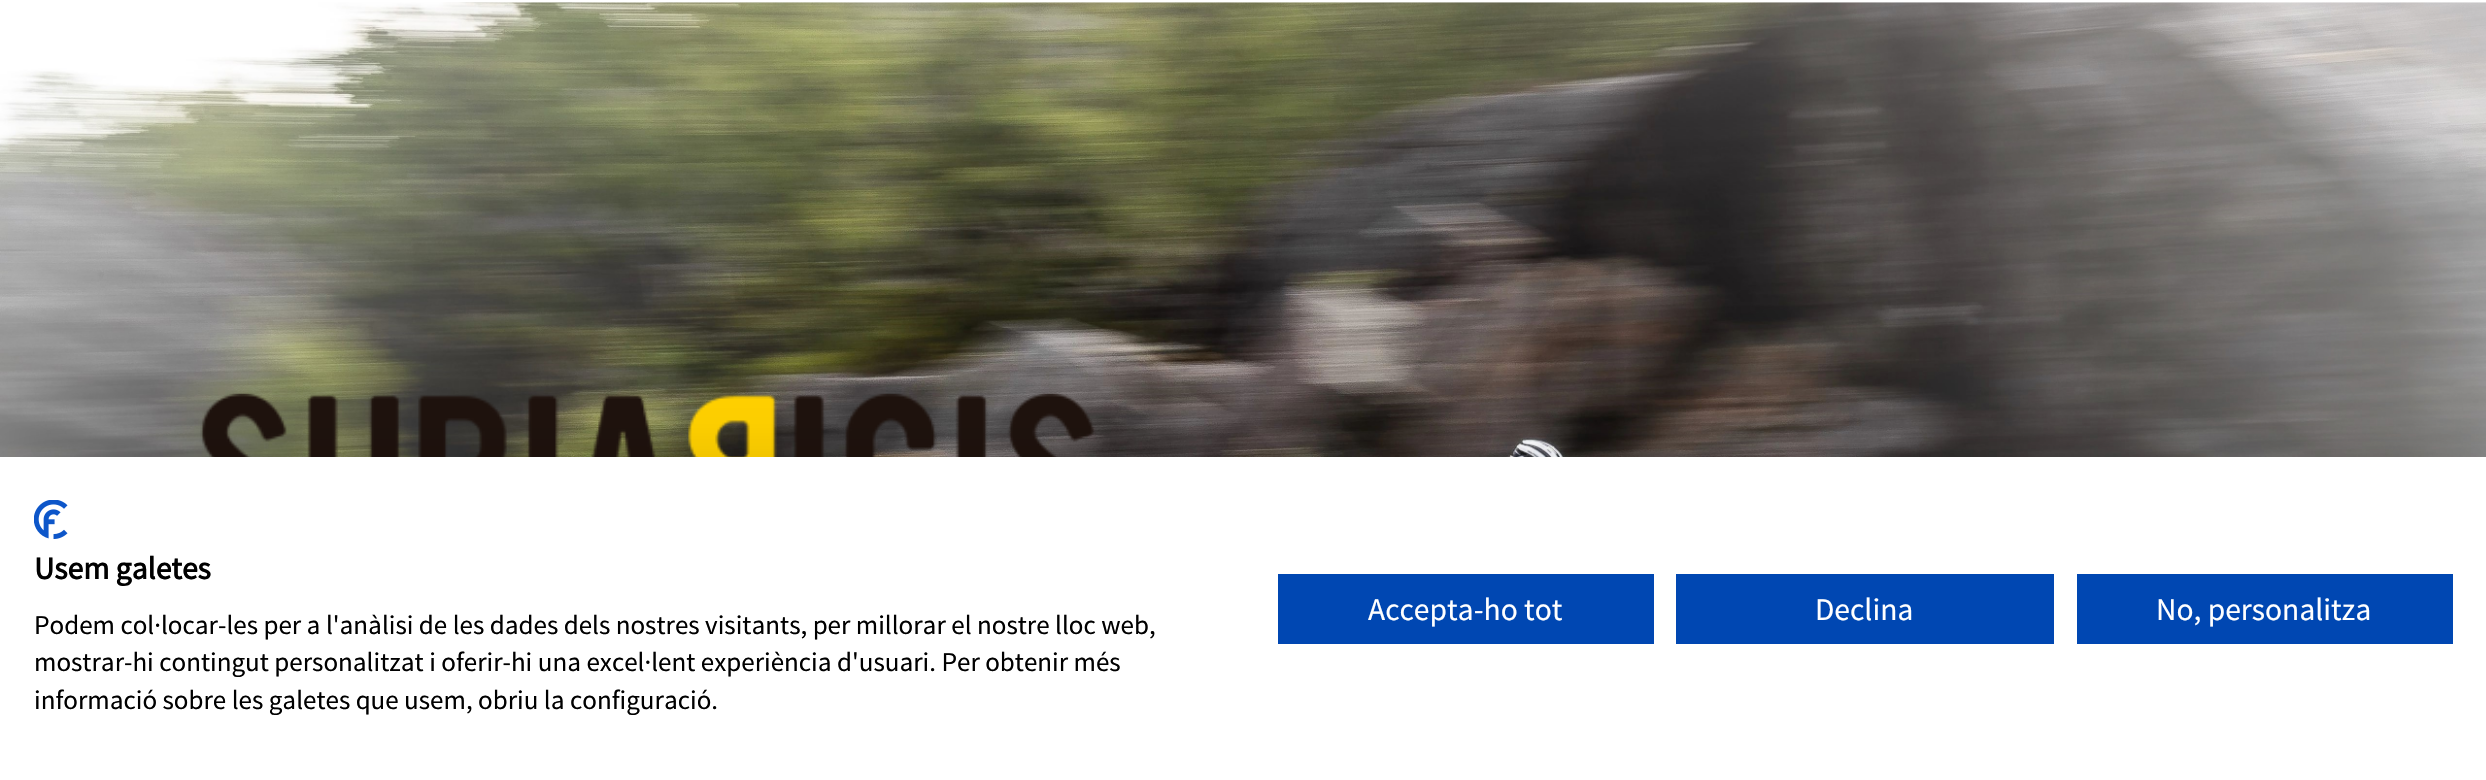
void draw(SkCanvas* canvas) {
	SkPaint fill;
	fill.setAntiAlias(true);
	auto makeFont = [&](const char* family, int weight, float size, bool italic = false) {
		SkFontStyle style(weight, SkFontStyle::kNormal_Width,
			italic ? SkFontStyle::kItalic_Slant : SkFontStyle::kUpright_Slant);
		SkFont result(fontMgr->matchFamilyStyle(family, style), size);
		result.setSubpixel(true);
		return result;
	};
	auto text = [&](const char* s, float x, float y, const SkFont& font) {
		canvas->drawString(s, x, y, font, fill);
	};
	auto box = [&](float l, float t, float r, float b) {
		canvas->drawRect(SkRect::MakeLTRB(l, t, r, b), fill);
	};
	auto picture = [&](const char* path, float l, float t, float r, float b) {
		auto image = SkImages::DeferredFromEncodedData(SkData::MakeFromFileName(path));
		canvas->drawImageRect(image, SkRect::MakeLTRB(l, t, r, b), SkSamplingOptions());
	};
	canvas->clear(0xFFFFFFFF);
	picture("image0.png", 0, 2, 2486, 457);
	picture("image1.png", 200, 393, 1096, 457);
	fill.setColor(0x1A000000);
	fill.setMaskFilter(SkMaskFilter::MakeBlur(kNormal_SkBlurStyle, 27));
	canvas->drawRect(SkRect::MakeLTRB(0, 457, 2486, 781), fill);
	fill.setMaskFilter(nullptr);
	fill.setColor(0xFFFFFFFF);
	box(0, 457, 2486, 780);
	picture("image2.png", 34, 500, 68, 539);
	fill.setColor(0xFF0047B2);
	box(1278, 574, 1654, 644);
	box(1676, 574, 2054, 644);
	box(2077, 574, 2453, 644);
	auto font1 = makeFont("Source Sans Pro", 700, 31.5f);
	fill.setColor(0xFF000000);
	text("Usem galetes", 34, 579, font1);
	auto font2 = makeFont("Source Sans Pro", 400, 27);
	text("Podem col·locar-les per a l'anàlisi de les dades dels nostres visitants, per millorar el nostre lloc web,", 34, 634, font2);
	text("mostrar-hi contingut personalitzat i oferir-hi una excel·lent experiència d'usuari. Per obtenir més", 34, 671, font2);
	text("informació sobre les galetes que usem, obriu la configuració.", 34, 709, font2);
	auto font3 = makeFont("Source Sans Pro", 400, 31.5f);
	fill.setColor(0xFFFFFFFF);
	text("Accepta-ho tot", 1368, 620, font3);
	text("Declina", 1815, 620, font3);
	text("No, personalitza", 2156, 620, font3);
}
